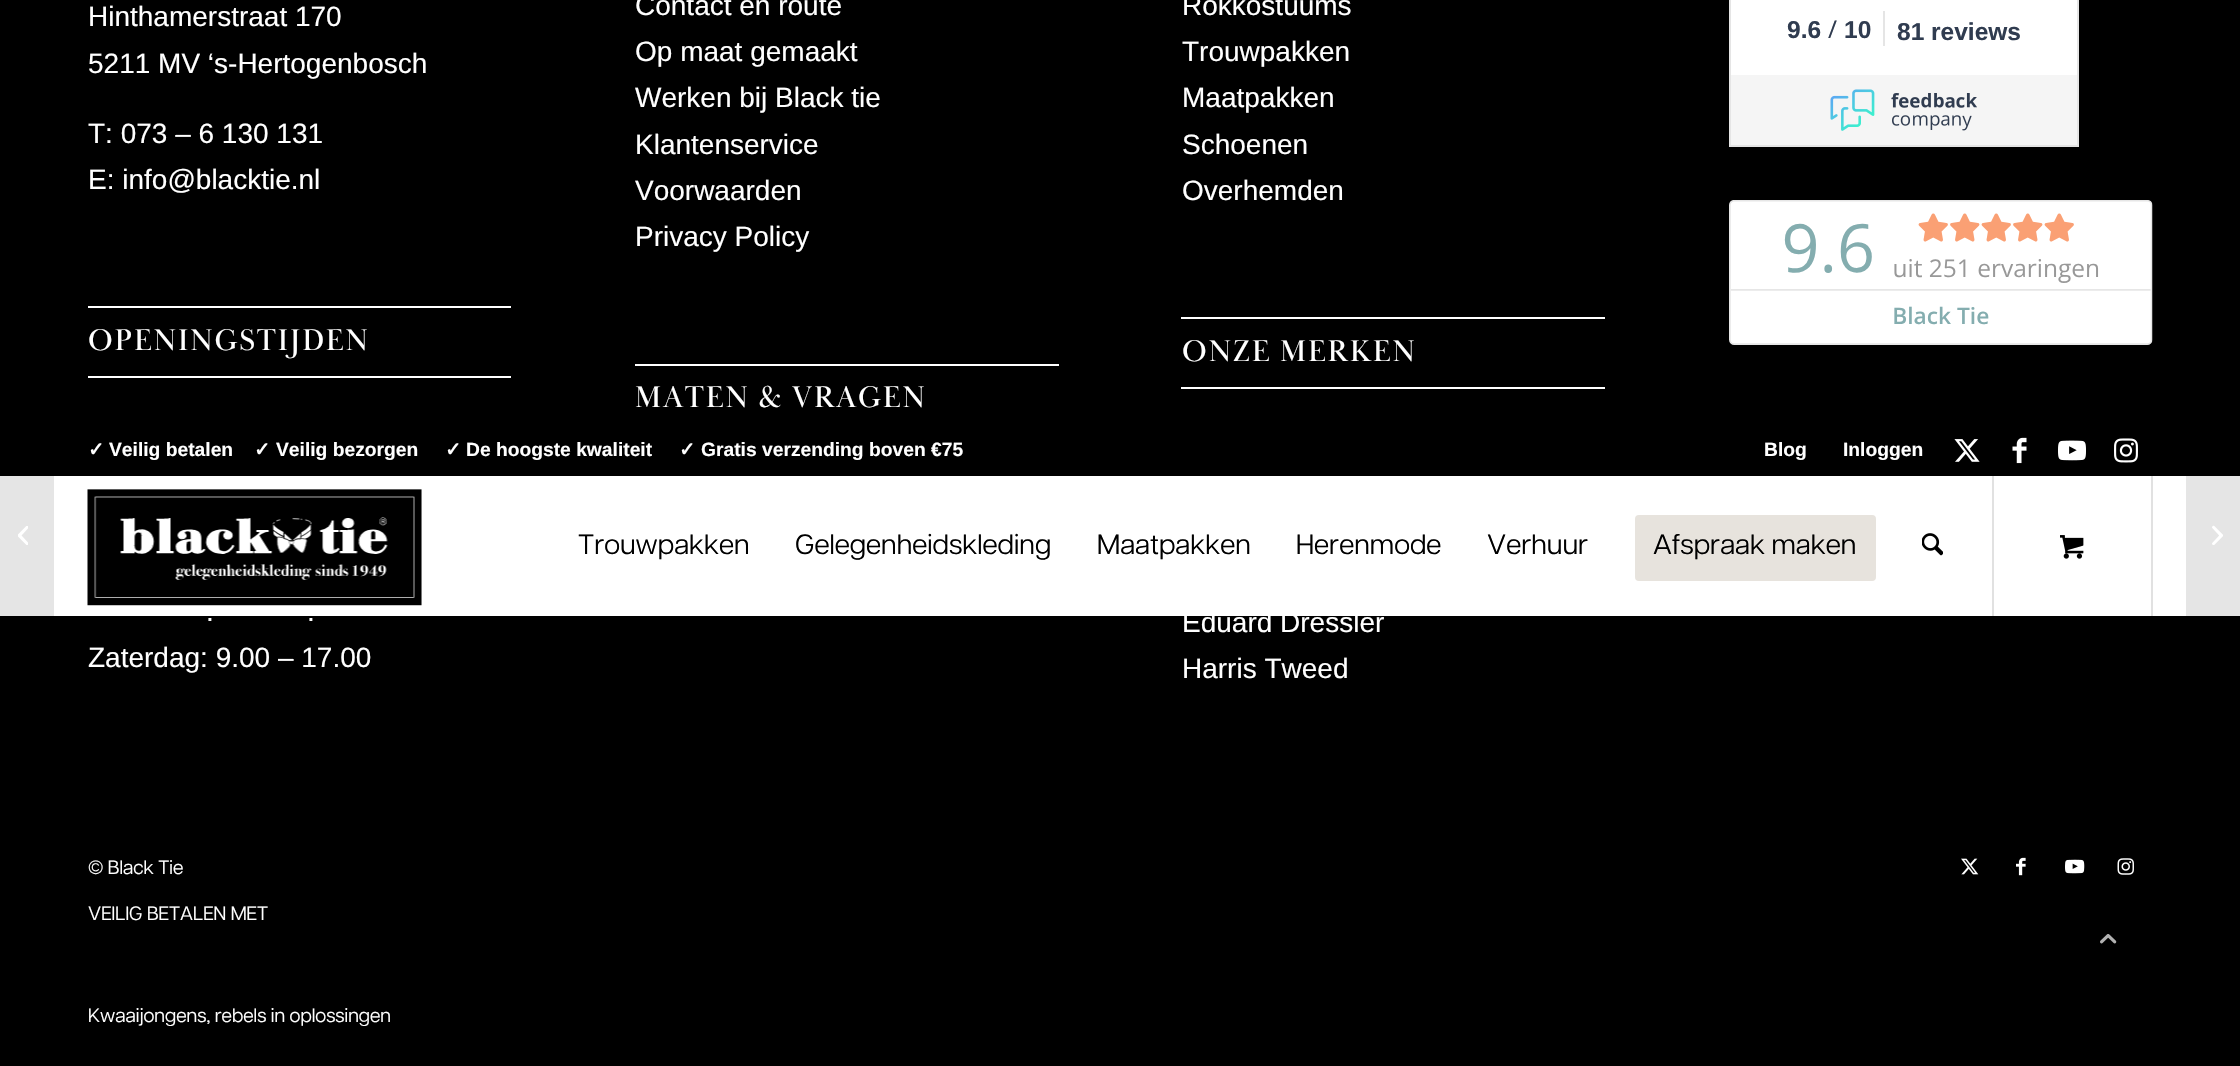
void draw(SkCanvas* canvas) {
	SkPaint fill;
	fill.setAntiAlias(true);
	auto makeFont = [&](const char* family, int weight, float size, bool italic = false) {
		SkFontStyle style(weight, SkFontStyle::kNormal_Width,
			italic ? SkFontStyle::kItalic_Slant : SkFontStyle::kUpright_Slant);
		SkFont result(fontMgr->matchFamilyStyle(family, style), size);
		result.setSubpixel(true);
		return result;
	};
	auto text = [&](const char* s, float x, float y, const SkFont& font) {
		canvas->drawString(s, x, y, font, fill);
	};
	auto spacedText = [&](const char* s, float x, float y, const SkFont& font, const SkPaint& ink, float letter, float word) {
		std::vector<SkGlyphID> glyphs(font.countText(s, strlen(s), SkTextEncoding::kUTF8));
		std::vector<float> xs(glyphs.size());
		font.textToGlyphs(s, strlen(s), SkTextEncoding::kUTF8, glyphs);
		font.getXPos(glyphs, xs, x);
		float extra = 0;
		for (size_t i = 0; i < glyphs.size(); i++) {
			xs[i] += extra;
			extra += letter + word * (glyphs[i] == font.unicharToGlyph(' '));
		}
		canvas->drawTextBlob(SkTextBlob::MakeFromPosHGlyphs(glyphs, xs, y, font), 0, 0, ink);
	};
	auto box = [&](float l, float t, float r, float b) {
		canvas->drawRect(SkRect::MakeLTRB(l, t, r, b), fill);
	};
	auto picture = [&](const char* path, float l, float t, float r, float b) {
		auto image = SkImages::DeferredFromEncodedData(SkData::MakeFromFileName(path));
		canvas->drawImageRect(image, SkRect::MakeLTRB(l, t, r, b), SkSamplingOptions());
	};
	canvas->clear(0xFF000000);
	fill.setColor(0x1A000000);
	fill.setMaskFilter(SkMaskFilter::MakeBlur(kNormal_SkBlurStyle, 2));
	canvas->drawRect(SkRect::MakeLTRB(-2, 422, 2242, 618), fill);
	fill.setMaskFilter(nullptr);
	fill.setColor(0xFFFFFFFF);
	box(0, 476, 2240, 616);
	fill.setColor(0x1A000000);
	canvas->drawPath(SkPathBuilder().moveTo(0, 438).lineTo(47, 438).cubicTo(51, 438, 54, 441, 54, 445).lineTo(54, 623).cubicTo(54, 627, 51, 630, 47, 630).lineTo(0, 630).close().detach(), fill);
	picture("image0.png", 18, 526, 28, 545);
	fill.setColor(0xFFFFFFFF);
	box(88, 306, 511, 308);
	box(88, 376, 511, 378);
	box(635, 364, 1059, 366);
	box(1181, 317, 1605, 319);
	box(1181, 387, 1605, 389);
	box(1731, 0, 2077, 75);
	fill.setStyle(SkPaint::kStroke_Style);
	fill.setStrokeWidth(2);
	fill.setColor(0xFFE5E5E5);
	canvas->drawRect(SkRect::MakeLTRB(1730, -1, 2078, 146), fill);
	fill.setStyle(SkPaint::kFill_Style);
	box(1883, 11, 1885, 46);
	fill.setColor(0xFFF5F5F5);
	box(1731, 75, 2077, 145);
	picture("image1.png", 1830, 89, 1977, 131);
	picture("image2.png", 1729, 200, 2153, 345);
	picture("image3.png", 1954, 439, 1980, 462);
	picture("image4.png", 2012, 437, 2027, 464);
	picture("image5.png", 2058, 440, 2086, 461);
	picture("image6.png", 2114, 438, 2138, 463);
	picture("image7.png", 87, 489, 422, 606);
	fill.setColor(0xFFE7E3DD);
	canvas->drawRoundRect(SkRect::MakeLTRB(1637, 517, 1874, 579), 2, 2, fill);
	fill.setStyle(SkPaint::kStroke_Style);
	fill.setStrokeWidth(4);
	canvas->drawRoundRect(SkRect::MakeLTRB(1637, 517, 1874, 579), 2, 2, fill);
	picture("image8.png", 1922, 533, 1943, 556);
	fill.setStyle(SkPaint::kFill_Style);
	fill.setColor(0xFFE1E1E1);
	box(2151, 476, 2153, 616);
	box(1992, 476, 1994, 616);
	picture("image9.png", 2060, 535, 2084, 559);
	picture("image10.png", 1961, 858, 1979, 875);
	picture("image11.png", 2016, 857, 2026, 876);
	picture("image12.png", 2065, 859, 2085, 874);
	picture("image13.png", 2117, 858, 2134, 875);
	fill.setColor(0x1A000000);
	canvas->drawPath(SkPathBuilder().moveTo(2193, 438).lineTo(2240, 438).lineTo(2240, 630).lineTo(2193, 630).cubicTo(2189, 630, 2186, 627, 2186, 623).lineTo(2186, 445).cubicTo(2186, 441, 2189, 438, 2193, 438).close().detach(), fill);
	picture("image14.png", 2212, 525, 2223, 545);
	picture("image15.png", 2100, 934, 2117, 944);
	auto font1 = makeFont("Liberation Sans", 400, 28);
	fill.setColor(0xFFFFFFFF);
	text("Hinthamerstraat 170", 88, 26, font1);
	text("5211 MV ‘s-Hertogenbosch", 88, 73, font1);
	text("T: 073 – 6 130 131", 88, 143, font1);
	text("E: info@blacktie.nl", 88, 189, font1);
	auto font2 = makeFont("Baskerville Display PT", 400, 30.75f);
	spacedText("OPENINGSTIJDEN", 88, 350, font2, fill, 1.75f, 0);
	text(".", 206, 621, font1);
	text(".", 307, 621, font1);
	text("Zaterdag: 9.00 – 17.00", 88, 667, font1);
	text("Contact en route", 635, 15, font1);
	text("Op maat gemaakt", 635, 61, font1);
	text("Werken bij Black tie", 635, 107, font1);
	text("Klantenservice", 635, 154, font1);
	text("Voorwaarden", 635, 200, font1);
	text("Privacy Policy", 635, 246, font1);
	spacedText("MATEN & VRAGEN", 635, 407, font2, fill, 1.75f, 0);
	text("Rokkostuums", 1182, 15, font1);
	text("Trouwpakken", 1182, 61, font1);
	text("Maatpakken", 1182, 107, font1);
	text("Schoenen", 1182, 154, font1);
	text("Overhemden", 1182, 200, font1);
	spacedText("ONZE MERKEN", 1182, 361, font2, fill, 1.75f, 0);
	text("Eduard Dressler", 1182, 632, font1);
	text("Harris Tweed", 1182, 678, font1);
	auto font3 = makeFont("Liberation Sans", 700, 24.5f);
	fill.setColor(0xFF303C50);
	text("9.6", 1787, 38, font3);
	auto font4 = makeFont("Open Sans", 400, 24.5f);
	text("/", 1828, 38, font4);
	text("10", 1844, 38, font3);
	text("81 reviews", 1897, 40, font3);
	auto font5 = makeFont("DejaVu Sans", 700, 19.25f);
	fill.setColor(0xFFFFFFFF);
	text("✓", 88, 456, font5);
	auto font6 = makeFont("Liberation Sans", 700, 19.25f);
	text("Veilig betalen", 109, 456, font6);
	text("✓", 254, 456, font5);
	text("Veilig bezorgen", 276, 456, font6);
	text("✓", 445, 456, font5);
	text("De hoogste kwaliteit", 466, 456, font6);
	text("✓", 679, 456, font5);
	text("Gratis verzending boven €75", 701, 456, font6);
	text("Blog", 1764, 456, font6);
	text("Inloggen", 1843, 456, font6);
	auto font7 = makeFont("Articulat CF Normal", 400, 28);
	fill.setColor(0xFF000000);
	text("Trouwpakken", 578, 554, font7);
	text("Gelegenheidskleding", 795, 554, font7);
	text("Maatpakken", 1097, 554, font7);
	text("Herenmode", 1296, 554, font7);
	text("Verhuur", 1487, 554, font7);
	text("Afspraak maken", 1653, 554, font7);
	auto font8 = makeFont("Articulat CF Normal", 400, 19.25f);
	fill.setColor(0xFFFFFFFF);
	text("© Black Tie", 88, 874, font8);
	text("VEILIG BETALEN MET", 88, 920, font8);
	text("Kwaaijongens, rebels in oplossingen", 88, 1022, font8);
}
